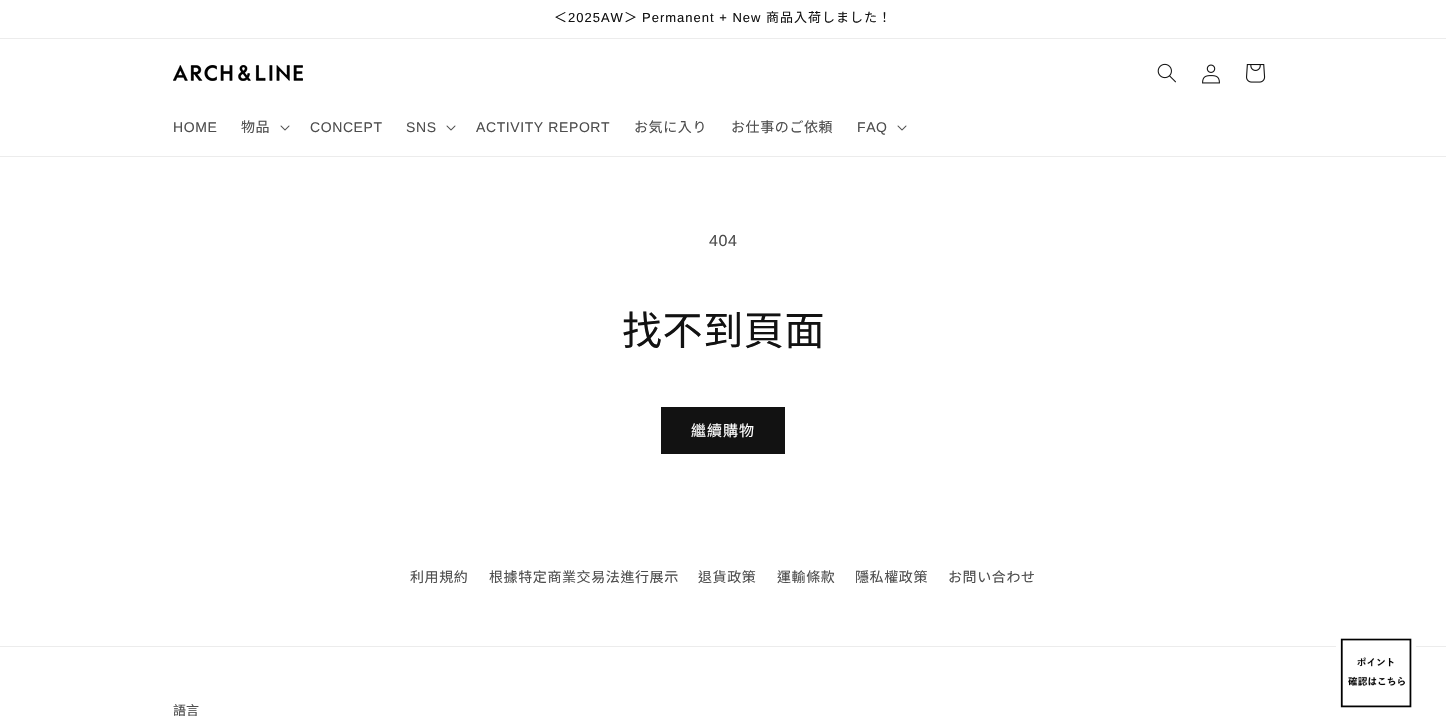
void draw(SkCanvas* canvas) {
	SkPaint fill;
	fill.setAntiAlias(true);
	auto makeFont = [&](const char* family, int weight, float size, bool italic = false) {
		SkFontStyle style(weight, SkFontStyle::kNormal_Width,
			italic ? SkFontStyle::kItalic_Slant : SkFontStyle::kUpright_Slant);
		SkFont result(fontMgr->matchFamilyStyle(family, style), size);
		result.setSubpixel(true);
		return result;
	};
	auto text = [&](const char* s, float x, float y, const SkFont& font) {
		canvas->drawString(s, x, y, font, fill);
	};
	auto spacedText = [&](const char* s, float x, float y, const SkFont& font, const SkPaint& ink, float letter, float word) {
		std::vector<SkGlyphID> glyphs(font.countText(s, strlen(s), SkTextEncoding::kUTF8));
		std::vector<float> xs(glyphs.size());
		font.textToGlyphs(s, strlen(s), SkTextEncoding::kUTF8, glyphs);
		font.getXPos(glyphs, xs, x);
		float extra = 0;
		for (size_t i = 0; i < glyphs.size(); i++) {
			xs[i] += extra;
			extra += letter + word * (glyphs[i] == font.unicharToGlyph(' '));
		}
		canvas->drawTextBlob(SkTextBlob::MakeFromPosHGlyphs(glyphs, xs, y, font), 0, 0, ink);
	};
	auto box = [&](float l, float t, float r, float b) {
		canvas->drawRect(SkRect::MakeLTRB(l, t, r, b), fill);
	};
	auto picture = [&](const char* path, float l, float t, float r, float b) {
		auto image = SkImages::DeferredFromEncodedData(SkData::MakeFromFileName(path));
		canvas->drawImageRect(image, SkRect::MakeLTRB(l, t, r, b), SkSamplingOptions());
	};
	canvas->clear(0xFFFFFFFF);
	fill.setColor(0xFFECECEC);
	box(0, 38, 1446, 39);
	box(0, 156, 1446, 157);
	picture("image0.png", 173, 65, 303, 81);
	picture("image1.png", 1157, 63, 1176, 83);
	picture("image2.png", 1202, 64, 1220, 84);
	picture("image3.png", 1246, 64, 1266, 83);
	picture("image4.png", 280, 125, 290, 131);
	picture("image4.png", 446, 125, 456, 131);
	picture("image4.png", 897, 125, 907, 131);
	fill.setColor(0xFF121212);
	box(661, 407, 785, 454);
	fill.setColor(0xFFECECEC);
	box(0, 646, 1446, 647);
	picture("image5.png", 1336, 638, 1416, 708);
	auto font1 = makeFont("Noto Sans CJK TC", 400, 13);
	fill.setColor(0xFF121212);
	spacedText("＜", 554, 22, font1, fill, 1, 0);
	auto font2 = makeFont("Liberation Sans", 400, 13);
	spacedText("2025AW", 568, 22, font2, fill, 1, 0);
	spacedText("＞", 624, 22, font1, fill, 1, 0);
	spacedText("Permanent + New", 642, 22, font2, fill, 1, 0);
	spacedText("商品入荷しました！", 766, 22, font1, fill, 1, 0);
	auto font3 = makeFont("Liberation Sans", 400, 14);
	fill.setColor(0xFF4D4D4D);
	spacedText("HOME", 173, 132, font3, fill, 0.6f, 0);
	auto font4 = makeFont("Noto Sans CJK TC", 400, 14);
	spacedText("物品", 241, 132, font4, fill, 0.6f, 0);
	spacedText("CONCEPT", 310, 132, font3, fill, 0.6f, 0);
	spacedText("SNS", 406, 132, font3, fill, 0.6f, 0);
	spacedText("ACTIVITY REPORT", 476, 132, font3, fill, 0.6f, 0);
	spacedText("お気に入り", 634, 132, font4, fill, 0.6f, 0);
	spacedText("お仕事のご依頼", 731, 132, font4, fill, 0.6f, 0);
	spacedText("FAQ", 857, 132, font3, fill, 0.6f, 0);
	auto font5 = makeFont("Liberation Sans", 400, 16);
	spacedText("404", 709, 246, font5, fill, 0.6f, 0);
	auto font6 = makeFont("Noto Sans CJK TC", 400, 40);
	fill.setColor(0xFF121212);
	spacedText("找不到頁面", 622, 345, font6, fill, 0.6f, 0);
	auto font7 = makeFont("Noto Sans CJK TC", 400, 15);
	fill.setColor(0xFFFFFFFF);
	spacedText("繼續購物", 691, 436, font7, fill, 1, 0);
	fill.setColor(0xFF4D4D4D);
	spacedText("利用規約", 410, 582, font4, fill, 0.6f, 0);
	spacedText("根據特定商業交易法進行展示", 489, 582, font4, fill, 0.6f, 0);
	spacedText("退貨政策", 698, 582, font4, fill, 0.6f, 0);
	spacedText("運輸條款", 777, 582, font4, fill, 0.6f, 0);
	spacedText("隱私權政策", 855, 582, font4, fill, 0.6f, 0);
	spacedText("お問い合わせ", 948, 582, font4, fill, 0.6f, 0);
	text("語言", 173, 715, font1);
}
